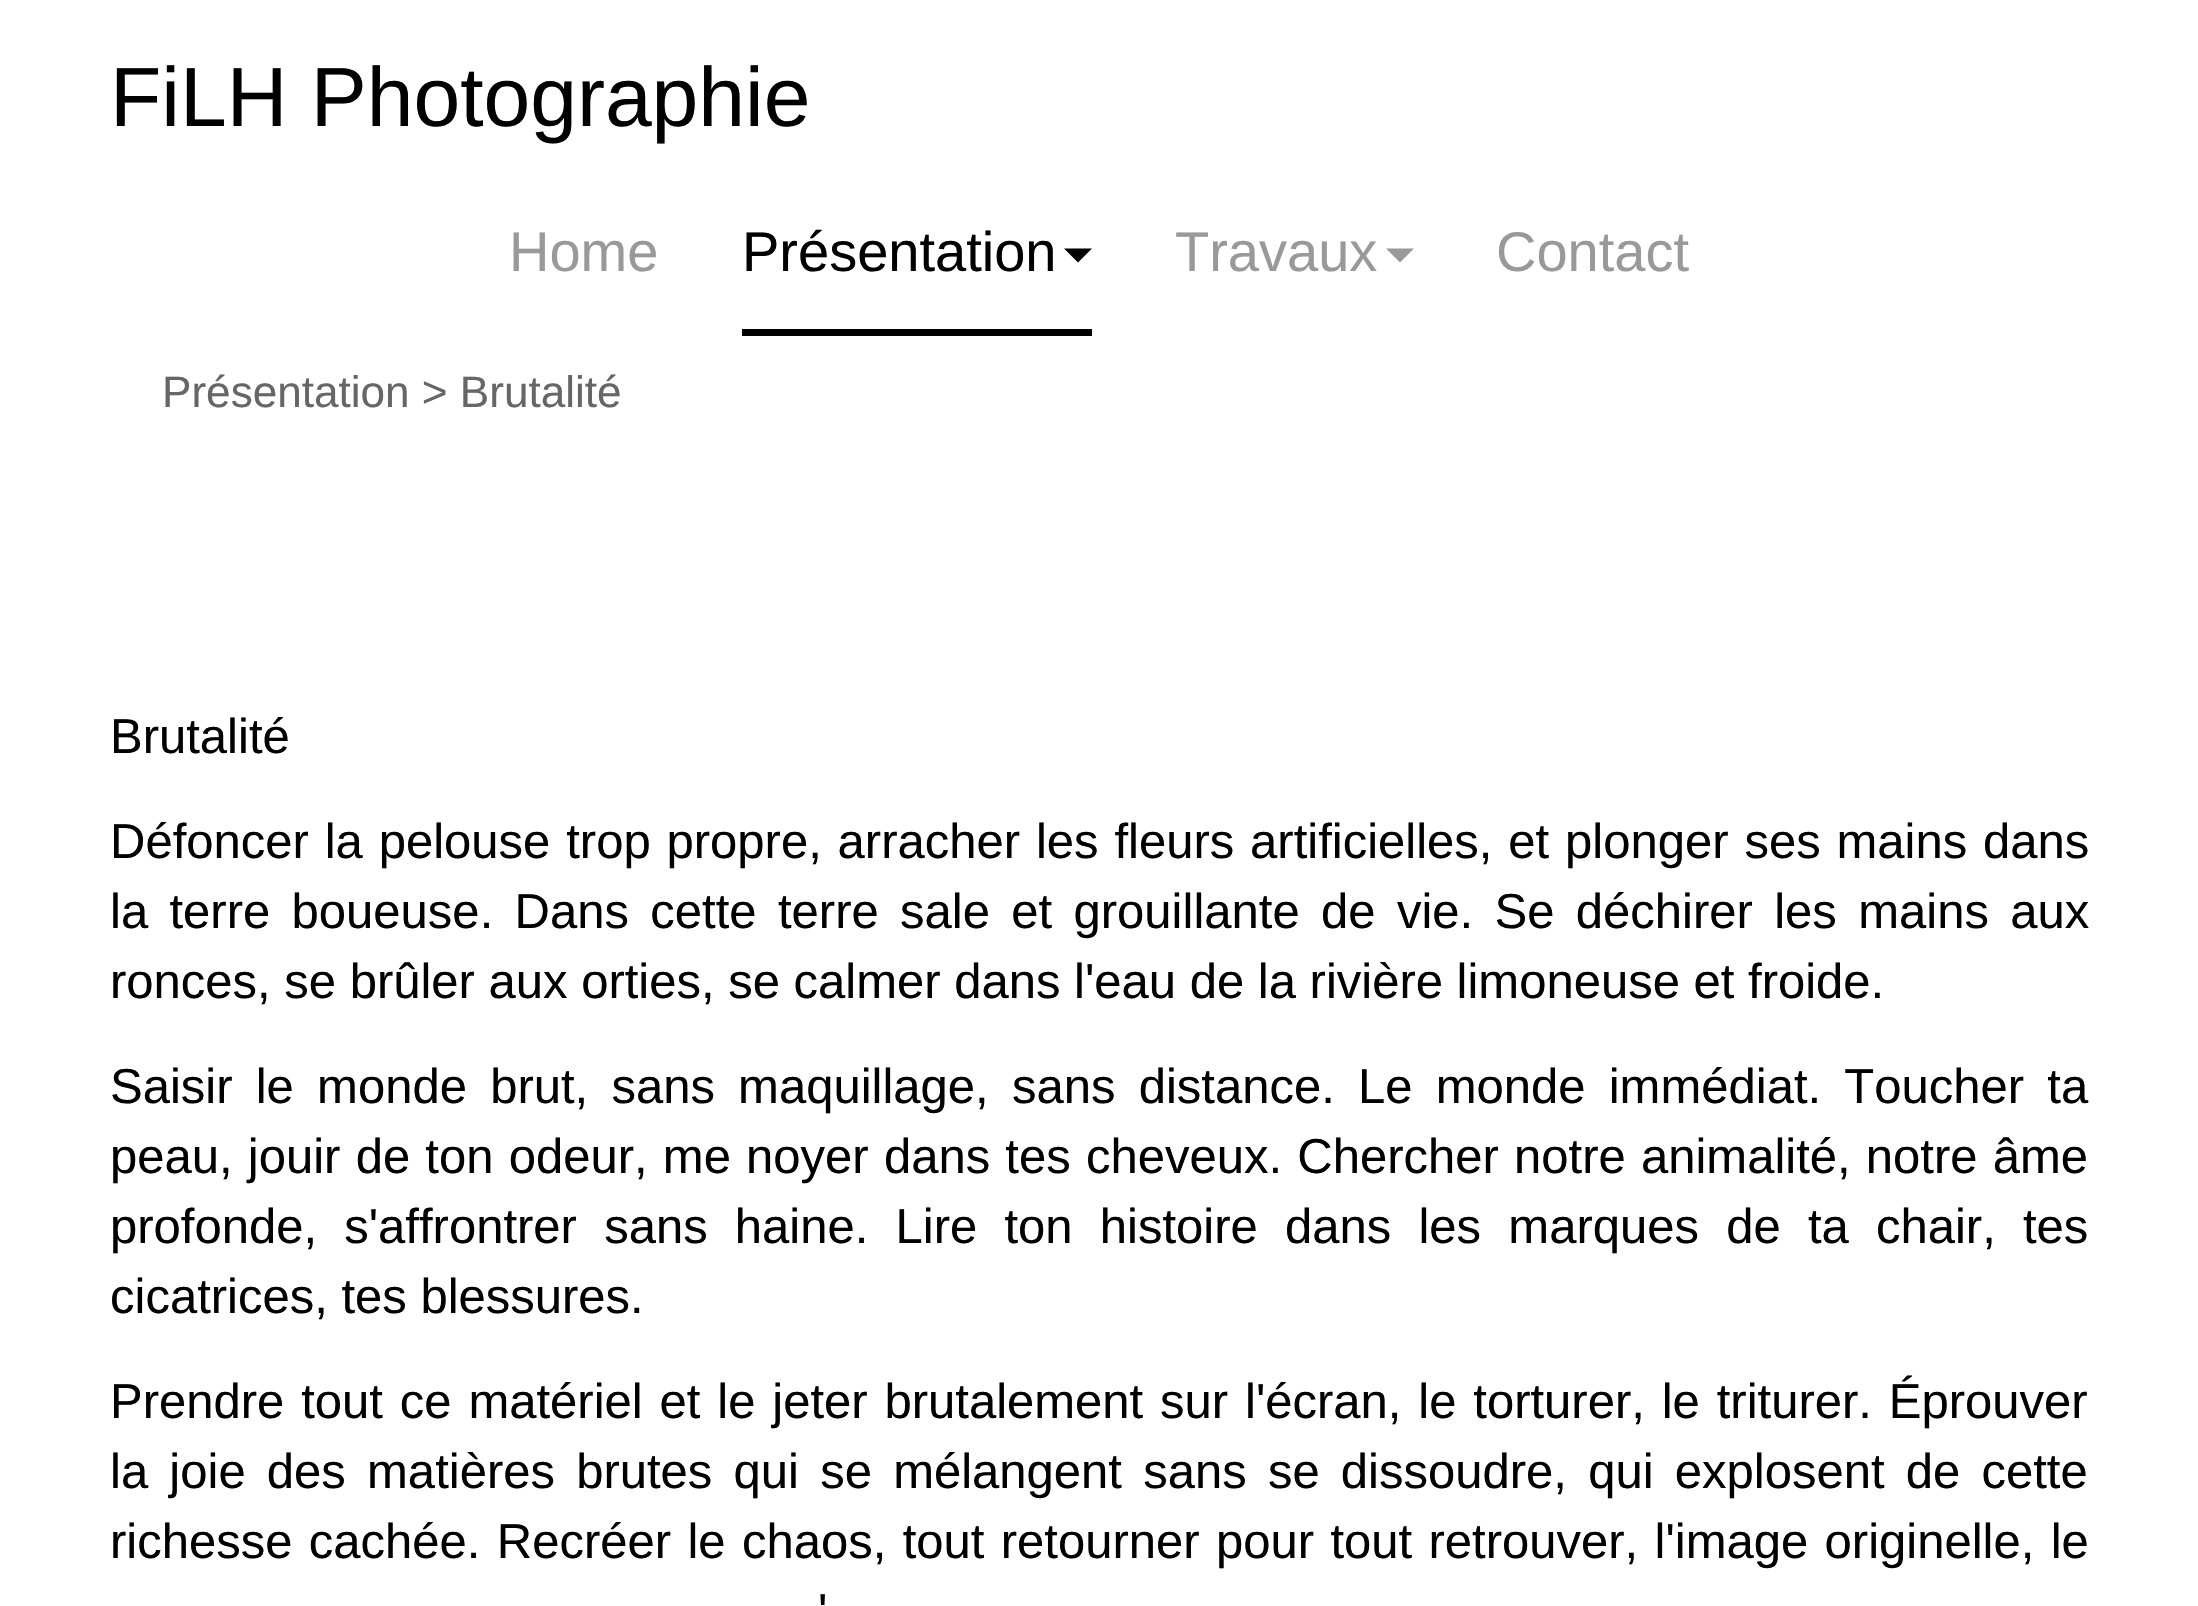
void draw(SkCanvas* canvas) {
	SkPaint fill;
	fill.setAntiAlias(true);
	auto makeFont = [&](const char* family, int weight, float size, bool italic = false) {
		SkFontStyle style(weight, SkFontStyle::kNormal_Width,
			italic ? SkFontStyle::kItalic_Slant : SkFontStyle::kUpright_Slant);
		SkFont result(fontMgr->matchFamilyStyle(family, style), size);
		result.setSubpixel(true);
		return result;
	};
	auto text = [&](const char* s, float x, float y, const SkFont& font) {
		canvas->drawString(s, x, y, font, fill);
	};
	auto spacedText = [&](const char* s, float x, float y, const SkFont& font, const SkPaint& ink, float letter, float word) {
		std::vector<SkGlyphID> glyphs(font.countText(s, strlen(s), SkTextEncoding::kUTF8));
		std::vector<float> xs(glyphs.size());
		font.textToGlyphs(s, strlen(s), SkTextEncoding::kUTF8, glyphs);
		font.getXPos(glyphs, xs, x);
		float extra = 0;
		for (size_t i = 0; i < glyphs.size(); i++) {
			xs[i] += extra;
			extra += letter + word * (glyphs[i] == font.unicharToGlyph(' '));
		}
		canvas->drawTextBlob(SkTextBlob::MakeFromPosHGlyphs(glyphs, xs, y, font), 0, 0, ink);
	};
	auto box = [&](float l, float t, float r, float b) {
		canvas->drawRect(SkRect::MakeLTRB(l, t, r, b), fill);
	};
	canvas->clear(0xFFFFFFFF);
	fill.setColor(0xFF000000);
	box(742, 329, 1092, 336);
	canvas->drawPath(SkPathBuilder().moveTo(1064, 248.5f).lineTo(1092, 248.5f).lineTo(1078, 262.5f).close().detach(), fill);
	fill.setColor(0xFF999999);
	canvas->drawPath(SkPathBuilder().moveTo(1386, 248.5f).lineTo(1414, 248.5f).lineTo(1400, 262.5f).close().detach(), fill);
	auto font1 = makeFont("Liberation Sans", 400, 84);
	fill.setColor(0xFF000000);
	text("FiLH Photographie", 110, 126, font1);
	auto font2 = makeFont("Liberation Sans", 400, 56);
	fill.setColor(0xFF999999);
	text("Home", 509, 271, font2);
	fill.setColor(0xFF000000);
	text("Présentation", 742, 271, font2);
	fill.setColor(0xFF999999);
	text("Travaux", 1175, 271, font2);
	text("Contact", 1496, 271, font2);
	auto font3 = makeFont("Liberation Sans", 400, 44.1f);
	fill.setColor(0xFF666666);
	text("Présentation > Brutalité", 162, 407, font3);
	auto font4 = makeFont("Liberation Sans", 400, 49);
	fill.setColor(0xFF000000);
	text("Brutalité", 110, 753, font4);
	spacedText("Défoncer la pelouse trop propre, arracher les fleurs artificielles, et plonger ses mains dans", 110, 858, font4, fill, 0, 2.25f);
	spacedText("la terre boueuse. Dans cette terre sale et grouillante de vie. Se déchirer les mains aux", 110, 928, font4, fill, 0, 7.75f);
	text("ronces, se brûler aux orties, se calmer dans l'eau de la rivière limoneuse et froide.", 110, 998, font4);
	spacedText("Saisir le monde brut, sans maquillage, sans distance. Le monde immédiat. Toucher ta", 110, 1103, font4, fill, 0, 9.6f);
	spacedText("peau, jouir de ton odeur, me noyer dans tes cheveux. Chercher notre animalité, notre âme", 110, 1173, font4, fill, 0, 1.6f);
	spacedText("profonde, s'affrontrer sans haine. Lire ton histoire dans les marques de ta chair, tes", 110, 1243, font4, fill, 0, 13.6f);
	text("cicatrices, tes blessures.", 110, 1313, font4);
	spacedText("Prendre tout ce matériel et le jeter brutalement sur l'écran, le torturer, le triturer. Éprouver", 110, 1418, font4, fill, 0, 3.25f);
	spacedText("la joie des matières brutes qui se mélangent sans se dissoudre, qui explosent de cette", 110, 1488, font4, fill, 0, 7.6f);
	spacedText("richesse cachée. Recréer le chaos, tout retourner pour tout retrouver, l'image originelle, le", 110, 1558, font4, fill, 0, 2.75f);
	text("'", 818, 1628, font4);
}
